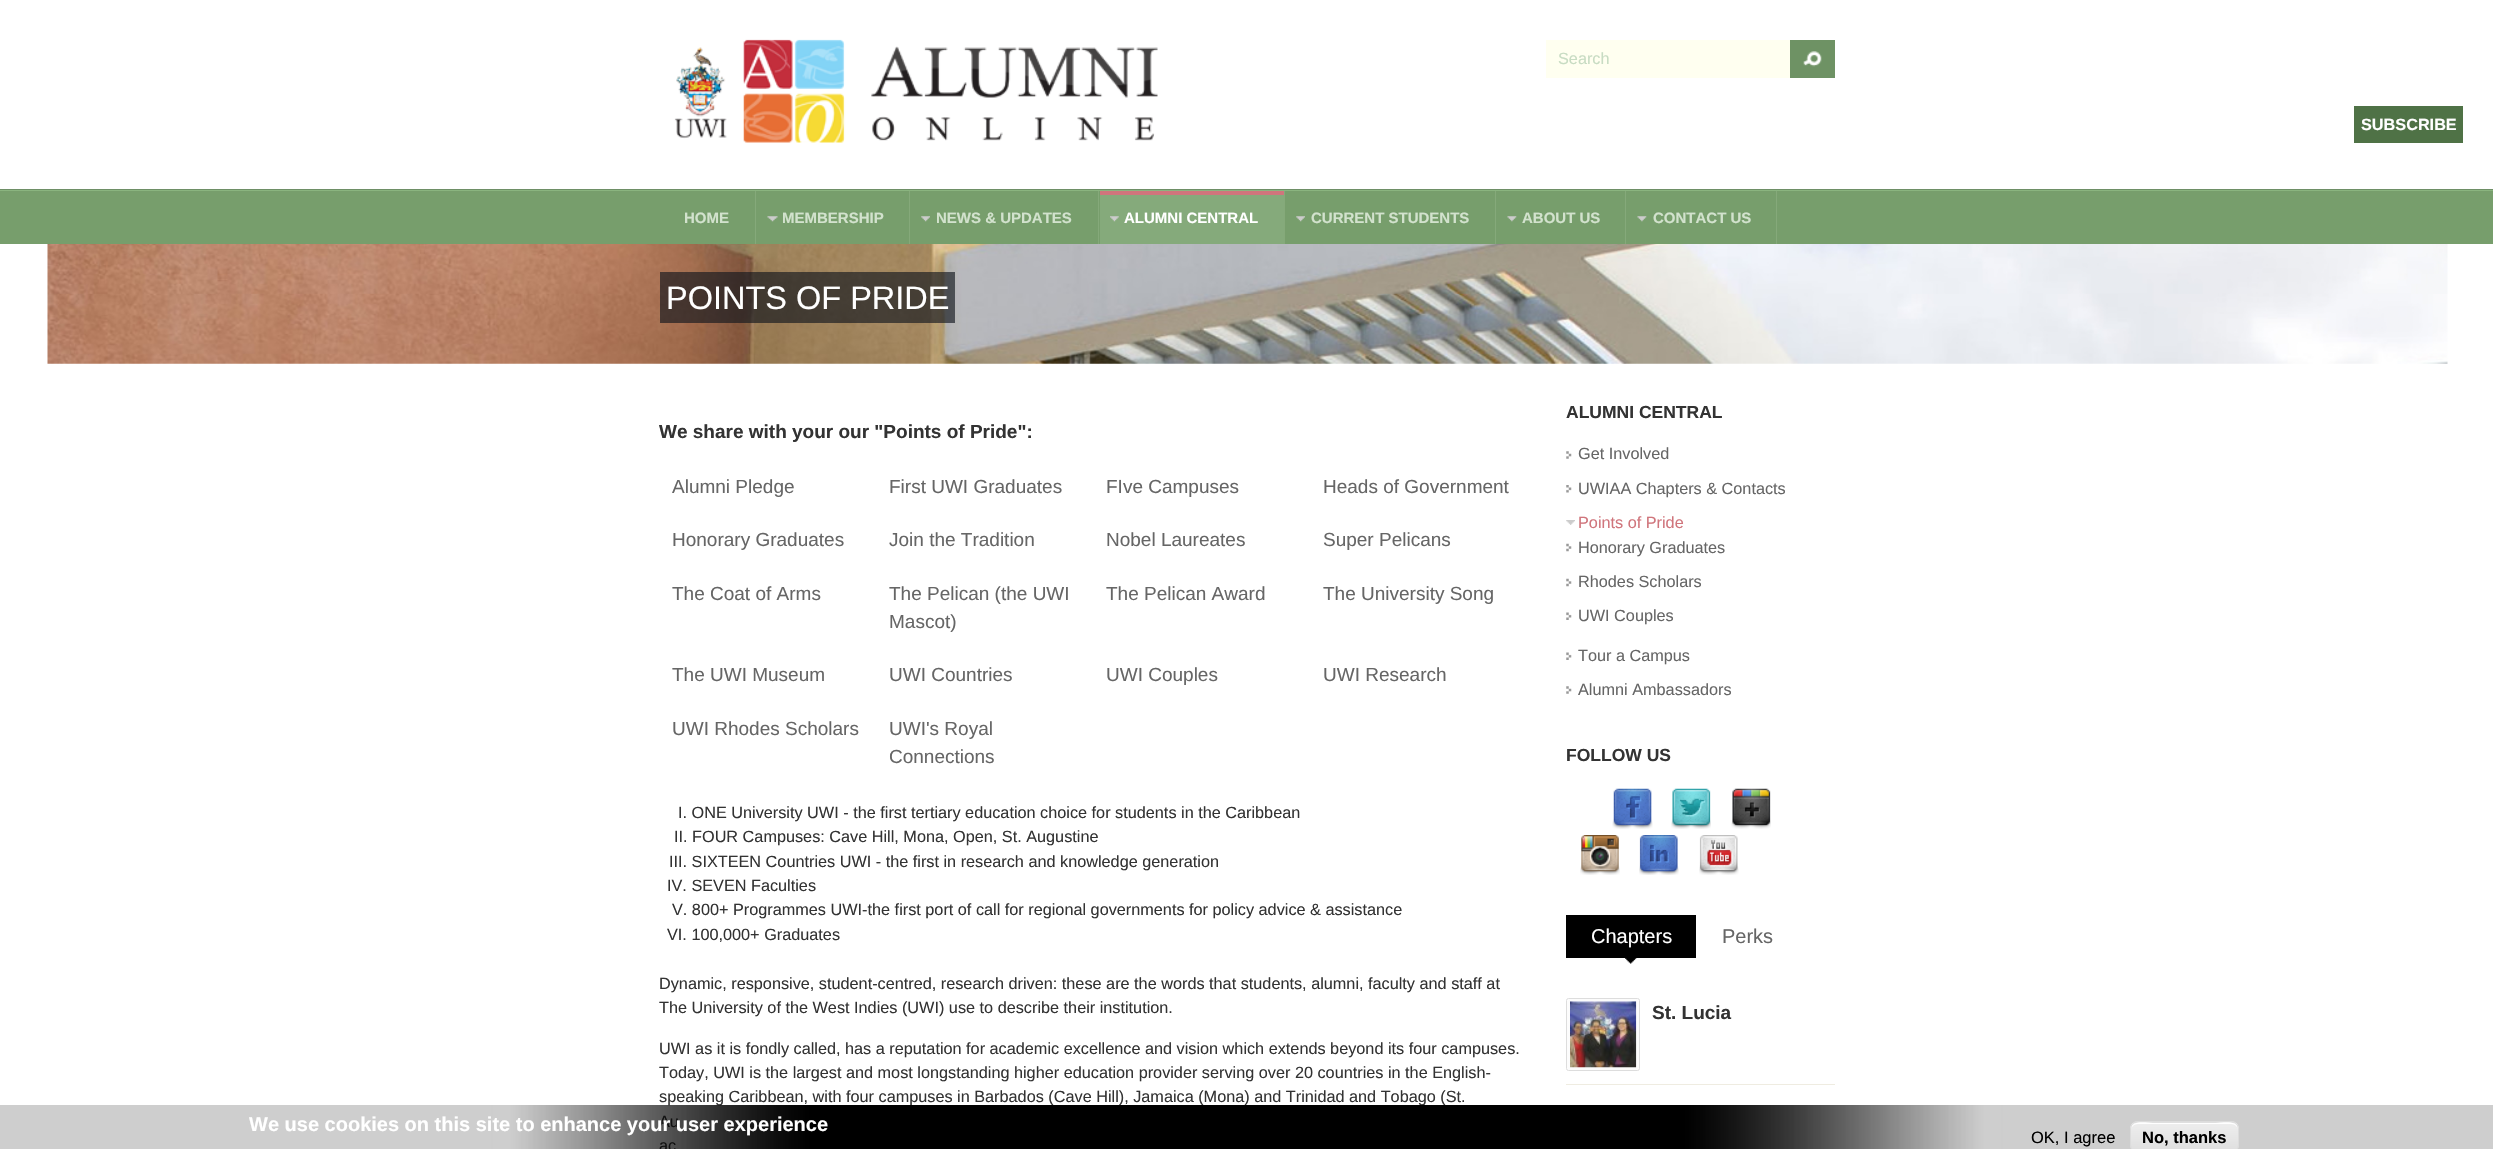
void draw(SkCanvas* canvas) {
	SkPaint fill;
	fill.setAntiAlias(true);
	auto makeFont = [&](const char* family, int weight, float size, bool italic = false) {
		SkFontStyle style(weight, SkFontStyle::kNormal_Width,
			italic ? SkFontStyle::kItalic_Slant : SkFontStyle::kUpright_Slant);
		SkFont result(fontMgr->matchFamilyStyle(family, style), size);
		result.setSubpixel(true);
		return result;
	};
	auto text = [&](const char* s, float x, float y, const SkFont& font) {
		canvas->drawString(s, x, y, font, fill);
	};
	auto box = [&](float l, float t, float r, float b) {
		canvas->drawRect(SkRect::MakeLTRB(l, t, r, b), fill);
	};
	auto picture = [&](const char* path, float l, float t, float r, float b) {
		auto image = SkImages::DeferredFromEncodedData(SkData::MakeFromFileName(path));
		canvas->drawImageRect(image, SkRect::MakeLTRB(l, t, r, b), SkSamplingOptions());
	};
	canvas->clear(0xFFFFFFFF);
	fill.setColor(0xFF6E8F66);
	box(0, 189, 2493, 190);
	picture("image0.png", 674, 39, 1158, 143);
	fill.setColor(0xFFFFFFF0);
	box(1546, 40, 1790, 78);
	fill.setColor(0xFF6E9264);
	box(1790, 40, 1835, 78);
	picture("image1.png", 1803, 51, 1822, 67);
	fill.setColor(0xFF4F7246);
	box(2354, 106, 2463, 143);
	fill.setColor(0xFF779E6C);
	box(0, 191, 2493, 244);
	fill.setColor(0xFF8AB47F);
	box(0, 190, 2493, 191);
	fill.setColor(0xFF85A97A);
	box(755, 191, 756, 244);
	box(909, 191, 910, 244);
	picture("image2.png", 767, 216, 778, 222);
	box(1098, 191, 1099, 244);
	picture("image3.png", 921, 216, 930, 222);
	box(1284, 191, 1285, 244);
	fill.setColor(0xFF85AA7B);
	box(1100, 195, 1284, 244);
	fill.setColor(0xFFD0757C);
	box(1100, 191, 1284, 195);
	picture("image4.png", 1110, 216, 1119, 222);
	fill.setColor(0xFF85A97A);
	box(1495, 191, 1496, 244);
	picture("image3.png", 1296, 216, 1305, 222);
	box(1625, 191, 1626, 244);
	picture("image5.png", 1507, 216, 1517, 222);
	box(1776, 191, 1777, 244);
	picture("image6.png", 1637, 216, 1647, 222);
	picture("image7.png", 47, 244, 2448, 364);
	fill.setColor(0xA310141C);
	box(660, 272, 955, 323);
	picture("image8.png", 1566, 451, 1572, 459);
	picture("image9.png", 1566, 485, 1572, 493);
	picture("image10.png", 1566, 520, 1575, 525);
	picture("image11.png", 1566, 543, 1572, 552);
	picture("image11.png", 1566, 578, 1572, 587);
	picture("image12.png", 1566, 612, 1572, 620);
	picture("image12.png", 1566, 652, 1572, 660);
	picture("image8.png", 1566, 686, 1572, 694);
	picture("image13.png", 1612, 788, 1653, 829);
	picture("image14.png", 1671, 788, 1711, 829);
	picture("image15.png", 1731, 788, 1771, 829);
	picture("image16.png", 1580, 835, 1620, 875);
	picture("image17.png", 1639, 835, 1679, 875);
	picture("image18.png", 1699, 835, 1739, 875);
	picture("image19.png", 1625, 958, 1637, 964);
	fill.setColor(0xFF000000);
	box(1566, 915, 1696, 958);
	fill.setColor(0xFFEFECE1);
	box(1566, 1084, 1835, 1085);
	fill.setColor(0xFFFCFCFC);
	canvas->drawRoundRect(SkRect::MakeLTRB(1566.5f, 998.5f, 1639.5f, 1070.5f), 2, 2, fill);
	fill.setStyle(SkPaint::kStroke_Style);
	fill.setStrokeWidth(1);
	fill.setColor(0xFFDDDDDD);
	canvas->drawRoundRect(SkRect::MakeLTRB(1566.5f, 998.5f, 1639.5f, 1070.5f), 2, 2, fill);
	picture("image20.png", 1570, 1001, 1637, 1068);
	auto font1 = makeFont("Liberation Sans", 400, 16.25f);
	fill.setStyle(SkPaint::kFill_Style);
	fill.setColor(0xFFC8DCC3);
	text("Search", 1558, 64, font1);
	auto font2 = makeFont("Liberation Sans", 700, 16.25f);
	fill.setColor(0xFFFFFFFF);
	text("SUBSCRIBE", 2361, 130, font2);
	auto font3 = makeFont("Liberation Sans", 700, 15);
	fill.setColor(0xFFD2E2CD);
	text("HOME", 684, 223, font3);
	text("MEMBERSHIP", 782, 223, font3);
	text("NEWS & UPDATES", 936, 223, font3);
	fill.setColor(0xFFFFFFFF);
	text("ALUMNI CENTRAL", 1124, 223, font3);
	fill.setColor(0xFFD2E2CD);
	text("CURRENT STUDENTS", 1311, 223, font3);
	text("ABOUT US", 1522, 223, font3);
	text("CONTACT US", 1653, 223, font3);
	auto font4 = makeFont("Liberation Sans", 400, 32.5f);
	fill.setColor(0xFFFFFFFF);
	text("POINTS OF PRIDE", 666, 309, font4);
	auto font5 = makeFont("Liberation Sans", 700, 19);
	fill.setColor(0xFF333333);
	text("We share with your our \"Points of Pride\":", 659, 438, font5);
	auto font6 = makeFont("Liberation Sans", 400, 19);
	fill.setColor(0xFF666666);
	text("Alumni Pledge", 672, 493, font6);
	text("First UWI Graduates", 889, 493, font6);
	text("FIve Campuses", 1106, 493, font6);
	text("Heads of Government", 1323, 493, font6);
	text("Honorary Graduates", 672, 546, font6);
	text("Join the Tradition", 889, 546, font6);
	text("Nobel Laureates", 1106, 546, font6);
	text("Super Pelicans", 1323, 546, font6);
	text("The Coat of Arms", 672, 600, font6);
	text("The Pelican (the UWI", 889, 600, font6);
	text("Mascot)", 889, 628, font6);
	text("The Pelican Award", 1106, 600, font6);
	text("The University Song", 1323, 600, font6);
	text("The UWI Museum", 672, 681, font6);
	text("UWI Countries", 889, 681, font6);
	text("UWI Couples", 1106, 681, font6);
	text("UWI Research", 1323, 681, font6);
	text("UWI Rhodes Scholars", 672, 735, font6);
	text("UWI's Royal", 889, 735, font6);
	text("Connections", 889, 763, font6);
	fill.setColor(0xFF333333);
	text("I. ONE University UWI - the first tertiary education choice for students in the Caribbean", 678, 818, font1);
	text("II. FOUR Campuses: Cave Hill, Mona, Open, St. Augustine", 674, 842, font1);
	text("III. SIXTEEN Countries UWI - the first in research and knowledge generation", 669, 867, font1);
	text("IV. SEVEN Faculties", 667, 891, font1);
	text("V. 800+ Programmes UWI-the first port of call for regional governments for policy advice & assistance", 672, 915, font1);
	text("VI. 100,000+ Graduates", 667, 940, font1);
	text("Dynamic, responsive, student-centred, research driven: these are the words that students, alumni, faculty and staff at", 659, 989, font1);
	text("The University of the West Indies (UWI) use to describe their institution.", 659, 1013, font1);
	text("UWI as it is fondly called, has a reputation for academic excellence and vision which extends beyond its four campuses.", 659, 1054, font1);
	text("Today, UWI is the largest and most longstanding higher education provider serving over 20 countries in the English-", 659, 1078, font1);
	text("speaking Caribbean, with four campuses in Barbados (Cave Hill), Jamaica (Mona) and Trinidad and Tobago (St.", 659, 1102, font1);
	text("Au", 659, 1127, font1);
	text("ac", 659, 1151, font1);
	auto font7 = makeFont("Liberation Sans", 700, 17.5f);
	text("ALUMNI CENTRAL", 1566, 418, font7);
	fill.setColor(0xFF666666);
	text("Get Involved", 1578, 459, font1);
	text("UWIAA Chapters & Contacts", 1578, 494, font1);
	fill.setColor(0xFFD0757C);
	text("Points of Pride", 1578, 528, font1);
	fill.setColor(0xFF666666);
	text("Honorary Graduates", 1578, 553, font1);
	text("Rhodes Scholars", 1578, 587, font1);
	text("UWI Couples", 1578, 621, font1);
	text("Tour a Campus", 1578, 661, font1);
	text("Alumni Ambassadors", 1578, 695, font1);
	fill.setColor(0xFF333333);
	text("FOLLOW US", 1566, 761, font7);
	auto font8 = makeFont("Liberation Sans", 400, 20);
	fill.setColor(0xFFFFFFFF);
	text("Chapters", 1591, 943, font8);
	fill.setColor(0xFF666666);
	text("Perks", 1722, 943, font8);
	fill.setColor(0xFF333333);
	text("St. Lucia", 1652, 1019, font5);
	picture("image21.png", 0, 1105, 2493, 1149);
	auto font9 = makeFont("Liberation Sans", 700, 20);
	fill.setColor(0xFFFFFFFF);
	text("We use cookies on this site to enhance your user experience", 249, 1131, font9);
	auto font10 = makeFont("Liberation Sans", 400, 16.5f);
	fill.setColor(0xFF000000);
	text("OK, I agree", 2031, 1143, font10);
	canvas->save();
	canvas->clipPath(SkPathBuilder().moveTo(2138, 1121).lineTo(2231, 1121).cubicTo(2235.5f, 1121, 2239, 1124.5f, 2239, 1129).lineTo(2239, 1145).cubicTo(2239, 1149.5f, 2235.5f, 1153, 2231, 1153).lineTo(2138, 1153).cubicTo(2133.5f, 1153, 2130, 1149.5f, 2130, 1145).lineTo(2130, 1129).cubicTo(2130, 1124.5f, 2133.5f, 1121, 2138, 1121).close().detach(), true);
	{
		const SkColor colors[] = {0xFFEDEDED, 0xFFDFDFDF};
		const float stops[] = {0.05f, 1};
		const SkPoint ends[] = {{2184, 1094}, {2184, 1123}};
		fill.setShader(SkGradientShader::MakeLinear(ends, colors, stops, 2, SkTileMode::kClamp));
		fill.setAlpha(255);
	}
	box(2130, 1121, 2239, 1123);
	{
		const SkColor colors[] = {0xFFEDEDED, 0xFFDFDFDF};
		const float stops[] = {0.05f, 1};
		const SkPoint ends[] = {{2184, 1123}, {2184, 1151}};
		fill.setShader(SkGradientShader::MakeLinear(ends, colors, stops, 2, SkTileMode::kClamp));
		fill.setAlpha(255);
	}
	box(2130, 1123, 2239, 1149);
	canvas->restore();
	fill.setShader(nullptr);
	fill.setColor(0xFFFFFFFF);
	canvas->drawPath(SkPathBuilder().moveTo(2138, 1124).lineTo(2231, 1124).cubicTo(2235, 1124, 2238, 1127, 2238, 1130).cubicTo(2238, 1119, 2222, 1123, 2216, 1123).lineTo(2153, 1123).cubicTo(2147, 1123, 2131, 1119, 2131, 1130).cubicTo(2131, 1127, 2134, 1124, 2138, 1124).close().detach(), fill);
	fill.setStyle(SkPaint::kStroke_Style);
	fill.setColor(0xFFDCDCDC);
	canvas->drawRoundRect(SkRect::MakeLTRB(2130.5f, 1121.5f, 2238.5f, 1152.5f), 7.5f, 7.5f, fill);
	auto font11 = makeFont("Liberation Sans", 700, 16.5f);
	fill.setStyle(SkPaint::kFill_Style);
	fill.setColor(0xFF000000);
	text("No, thanks", 2142, 1143, font11);
}
